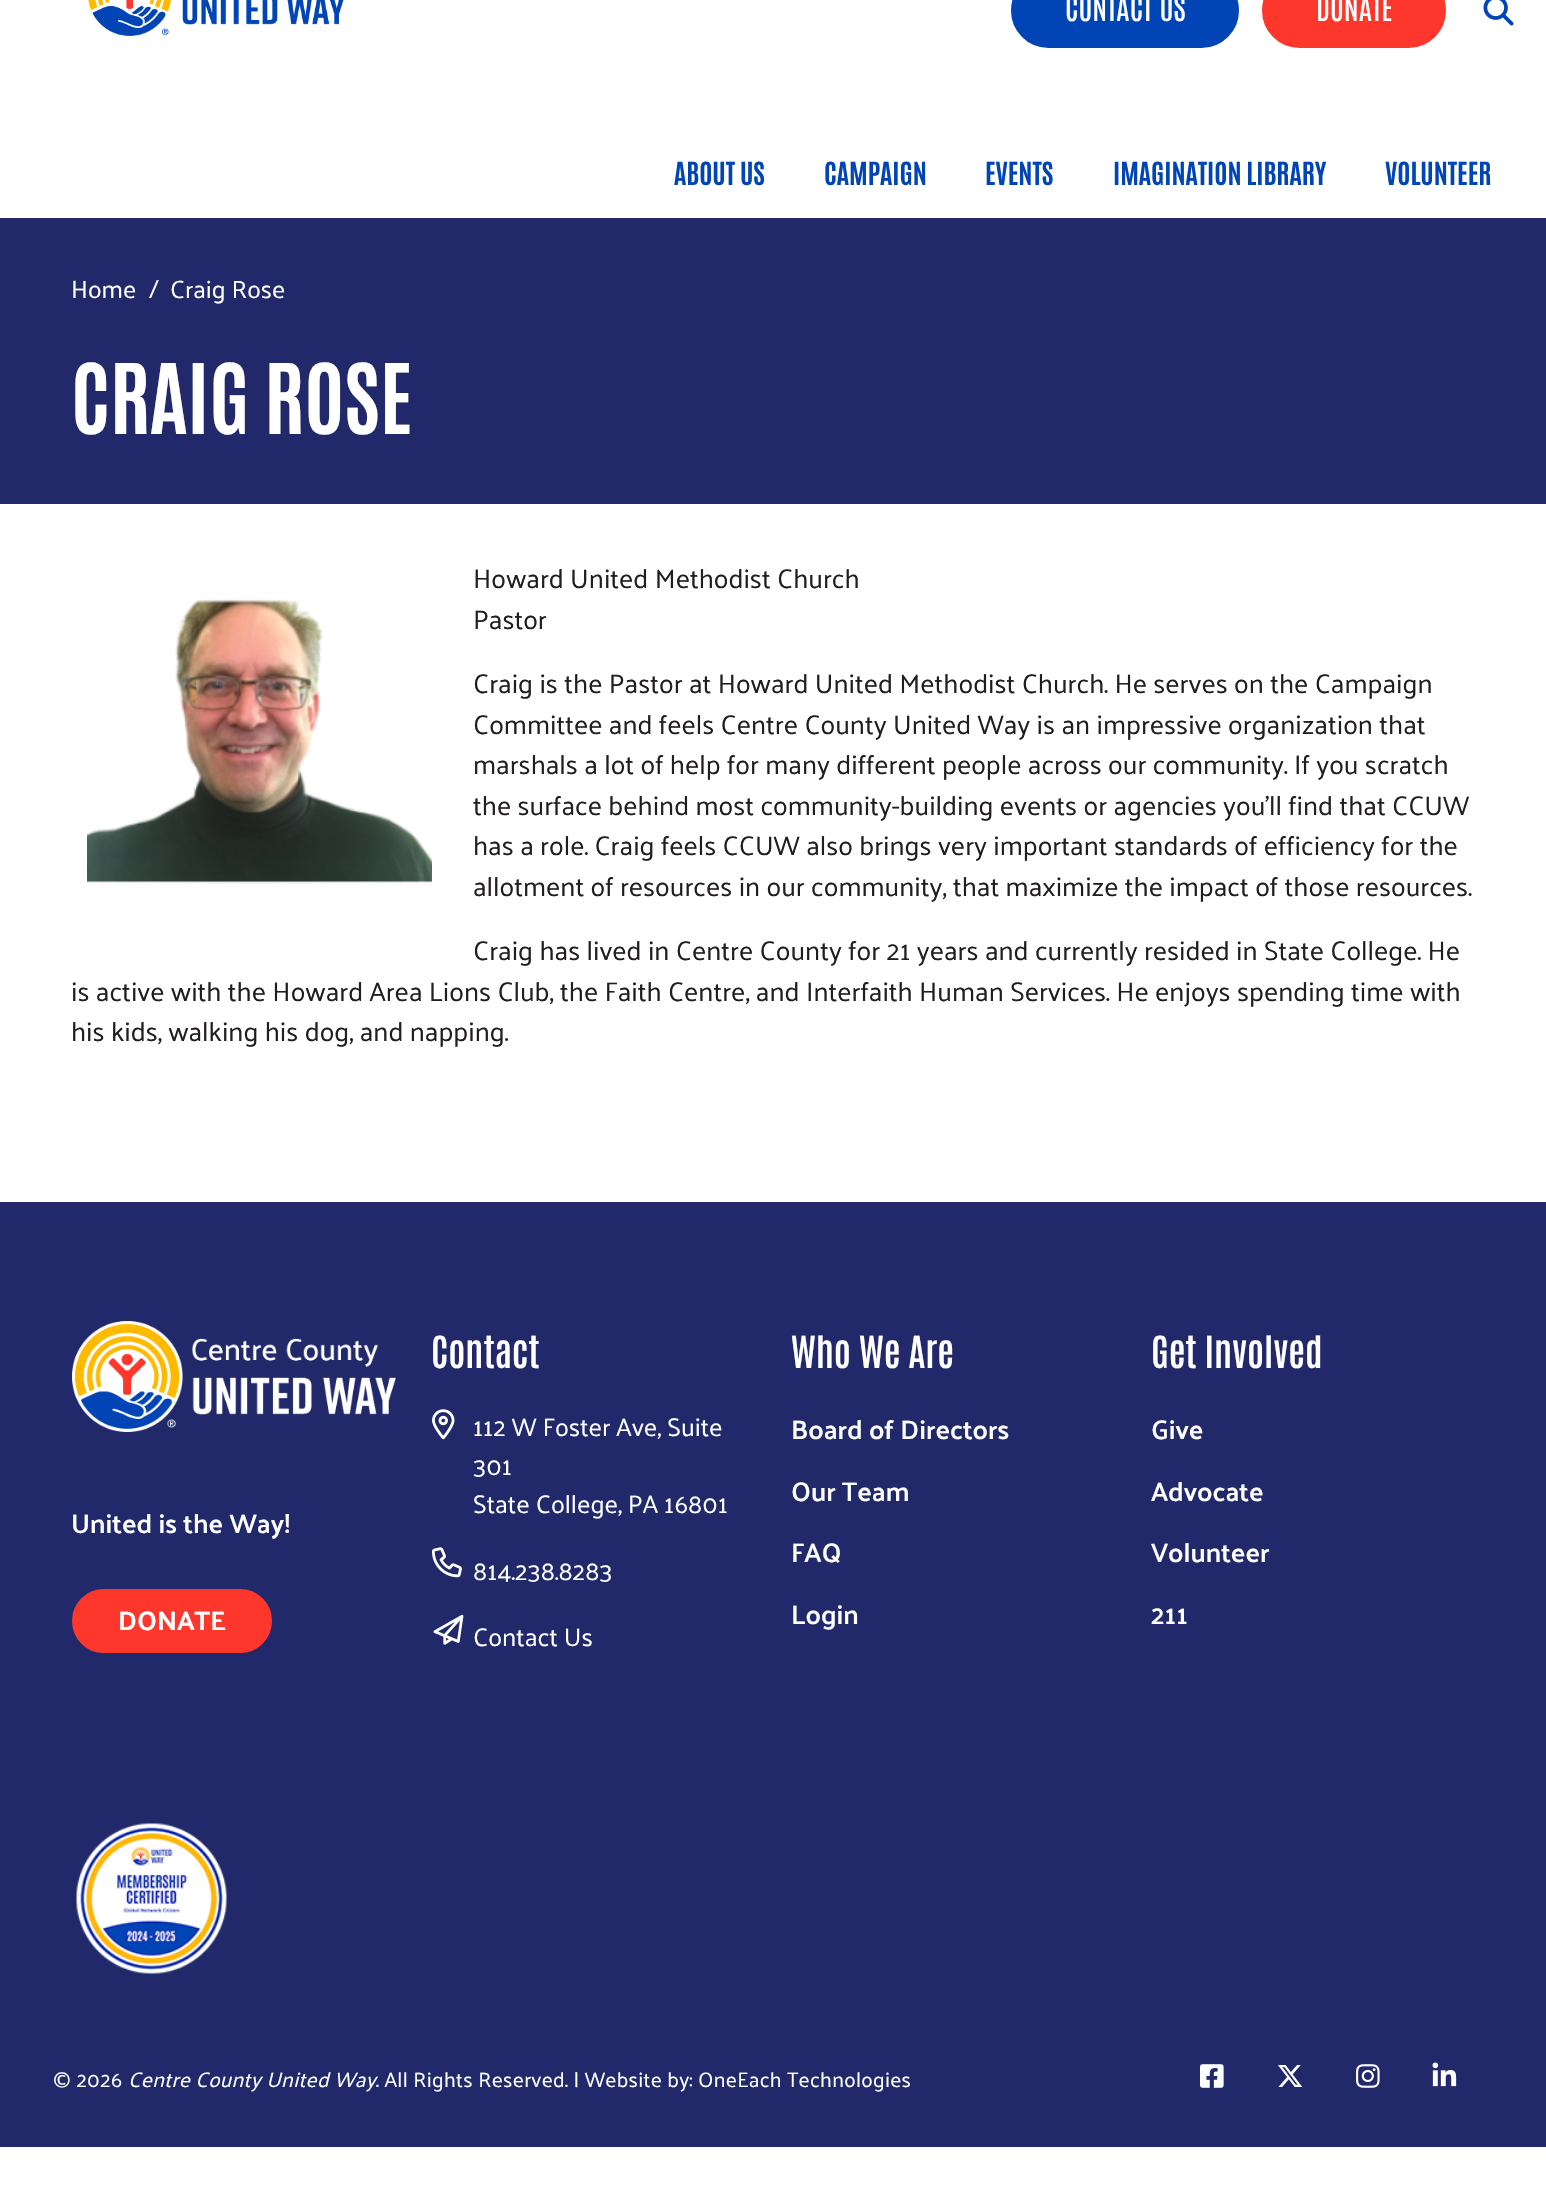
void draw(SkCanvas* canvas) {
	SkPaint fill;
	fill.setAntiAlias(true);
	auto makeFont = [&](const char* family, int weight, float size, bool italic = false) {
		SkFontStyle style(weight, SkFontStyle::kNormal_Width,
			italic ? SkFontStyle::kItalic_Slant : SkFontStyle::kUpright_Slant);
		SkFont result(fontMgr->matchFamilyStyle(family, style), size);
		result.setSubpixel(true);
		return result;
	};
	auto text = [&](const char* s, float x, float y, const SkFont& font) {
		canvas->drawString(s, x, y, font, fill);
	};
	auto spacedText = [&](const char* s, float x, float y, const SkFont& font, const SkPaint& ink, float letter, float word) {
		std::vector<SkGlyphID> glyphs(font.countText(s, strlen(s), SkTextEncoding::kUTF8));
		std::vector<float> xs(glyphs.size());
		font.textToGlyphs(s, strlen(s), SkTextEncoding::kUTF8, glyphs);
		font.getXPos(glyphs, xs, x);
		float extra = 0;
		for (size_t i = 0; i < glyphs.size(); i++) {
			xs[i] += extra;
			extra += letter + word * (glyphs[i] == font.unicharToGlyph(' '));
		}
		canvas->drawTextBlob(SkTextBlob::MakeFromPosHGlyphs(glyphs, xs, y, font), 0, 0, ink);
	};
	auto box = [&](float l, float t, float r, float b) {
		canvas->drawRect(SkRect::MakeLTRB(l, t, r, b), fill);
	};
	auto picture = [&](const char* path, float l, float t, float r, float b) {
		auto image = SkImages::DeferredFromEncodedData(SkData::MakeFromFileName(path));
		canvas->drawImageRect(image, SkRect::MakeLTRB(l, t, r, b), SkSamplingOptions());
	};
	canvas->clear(0xFFFFFFFF);
	picture("image0.png", 88, 0, 344, 36);
	fill.setColor(0xFF0044B5);
	canvas->drawRoundRect(SkRect::MakeLTRB(1012, -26, 1238, 47), 36.5f, 36.5f, fill);
	fill.setStyle(SkPaint::kStroke_Style);
	fill.setStrokeWidth(2);
	canvas->drawRoundRect(SkRect::MakeLTRB(1012, -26, 1238, 47), 36.5f, 36.5f, fill);
	fill.setStyle(SkPaint::kFill_Style);
	fill.setColor(0xFFFD372C);
	canvas->drawRoundRect(SkRect::MakeLTRB(1263, -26, 1445, 47), 36.5f, 36.5f, fill);
	fill.setStyle(SkPaint::kStroke_Style);
	canvas->drawRoundRect(SkRect::MakeLTRB(1263, -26, 1445, 47), 36.5f, 36.5f, fill);
	picture("image1.png", 1483, 0, 1514, 26);
	fill.setStyle(SkPaint::kFill_Style);
	fill.setColor(0xFF21296B);
	box(0, 218, 1546, 504);
	picture("image2.png", 87, 599, 432, 884);
	box(0, 1202, 1546, 2147);
	picture("image3.png", 72, 1321, 396, 1432);
	fill.setColor(0xFFFD372C);
	canvas->drawRoundRect(SkRect::MakeLTRB(73, 1590, 271, 1652), 31, 31, fill);
	fill.setStyle(SkPaint::kStroke_Style);
	canvas->drawRoundRect(SkRect::MakeLTRB(73, 1590, 271, 1652), 31, 31, fill);
	picture("image4.png", 432, 1409, 455, 1440);
	picture("image5.png", 432, 1547, 462, 1578);
	picture("image6.png", 433, 1614, 464, 1645);
	picture("image7.png", 76, 1823, 227, 1974);
	picture("image8.png", 1200, 2064, 1224, 2088);
	picture("image9.png", 1278, 2065, 1303, 2087);
	picture("image10.png", 1356, 2064, 1380, 2088);
	picture("image11.png", 1432, 2062, 1457, 2087);
	auto font1 = makeFont("Antonio", 400, 30);
	fill.setStyle(SkPaint::kFill_Style);
	fill.setColor(0xFFFFFFFF);
	text("CONTACT US", 1065, 21, font1);
	text("DONATE", 1316, 21, font1);
	auto font2 = makeFont("Antonio", 700, 27);
	fill.setColor(0xFF0044B5);
	text("ABOUT US", 674, 185, font2);
	text("CAMPAIGN", 824, 185, font2);
	text("EVENTS", 985, 185, font2);
	text("IMAGINATION LIBRARY", 1113, 185, font2);
	text("VOLUNTEER", 1385, 185, font2);
	auto font3 = makeFont("Palanquin", 400, 25);
	fill.setColor(0xFFFFFFFF);
	text("Home", 71, 298, font3);
	text("/", 149, 298, font3);
	text("Craig Rose", 170, 298, font3);
	auto font4 = makeFont("Antonio", 700, 82.5f);
	text("CRAIG ROSE", 71, 434, font4);
	auto font5 = makeFont("Palanquin", 400, 27);
	fill.setColor(0xFF221E1F);
	text("Howard United Methodist Church", 473, 588, font5);
	text("Pastor", 473, 629, font5);
	text("Craig is the Pastor at Howard United Methodist Church. He serves on the Campaign", 473, 693, font5);
	text("Committee and feels Centre County United Way is an impressive organization that", 473, 734, font5);
	text("marshals a lot of help for many different people across our community. If you scratch", 473, 774, font5);
	text("the surface behind most community-building events or agencies you'll find that CCUW", 473, 815, font5);
	text("has a role. Craig feels CCUW also brings very important standards of efficiency for the", 473, 855, font5);
	text("allotment of resources in our community, that maximize the impact of those resources.", 473, 896, font5);
	text("Craig has lived in Centre County for 21 years and currently resided in State College. He", 473, 960, font5);
	text("is active with the Howard Area Lions Club, the Faith Centre, and Interfaith Human Services. He enjoys spending time with", 71, 1001, font5);
	text("his kids, walking his dog, and napping.", 71, 1041, font5);
	auto font6 = makeFont("Palanquin", 600, 27);
	fill.setColor(0xFFFFFFFF);
	text("United is the Way!", 71, 1533, font6);
	auto font7 = makeFont("Palanquin", 700, 27);
	text("DONATE", 118, 1630, font7);
	auto font8 = makeFont("Antonio", 600, 37.5f);
	text("Contact", 431, 1368, font8);
	auto font9 = makeFont("Palanquin", 400, 25.5f);
	text("112 W Foster Ave, Suite", 473, 1436, font9);
	text("301", 473, 1475, font9);
	text("State College, PA 16801", 473, 1513, font9);
	text("814.238.8283", 473, 1580, font9);
	text("Contact Us", 473, 1646, font9);
	text("Who We Are", 791, 1368, font8);
	text("Board of Directors", 791, 1439, font6);
	text("Our Team", 791, 1501, font6);
	text("FAQ", 791, 1562, font6);
	text("Login", 791, 1624, font6);
	text("Get Involved", 1151, 1368, font8);
	text("Give", 1151, 1439, font6);
	text("Advocate", 1151, 1501, font6);
	text("Volunteer", 1151, 1562, font6);
	text("211", 1151, 1624, font6);
	auto font10 = makeFont("Palanquin", 400, 21);
	spacedText("© 2026", 53, 2087, font10, fill, 0.3f, 0);
	auto font11 = makeFont("Palanquin", 400, 21, true);
	spacedText("Centre County United Way", 128, 2087, font11, fill, 0.3f, 0);
	spacedText(". All Rights Reserved. | Website by: OneEach Technologies", 376, 2087, font10, fill, 0.3f, 0);
}
